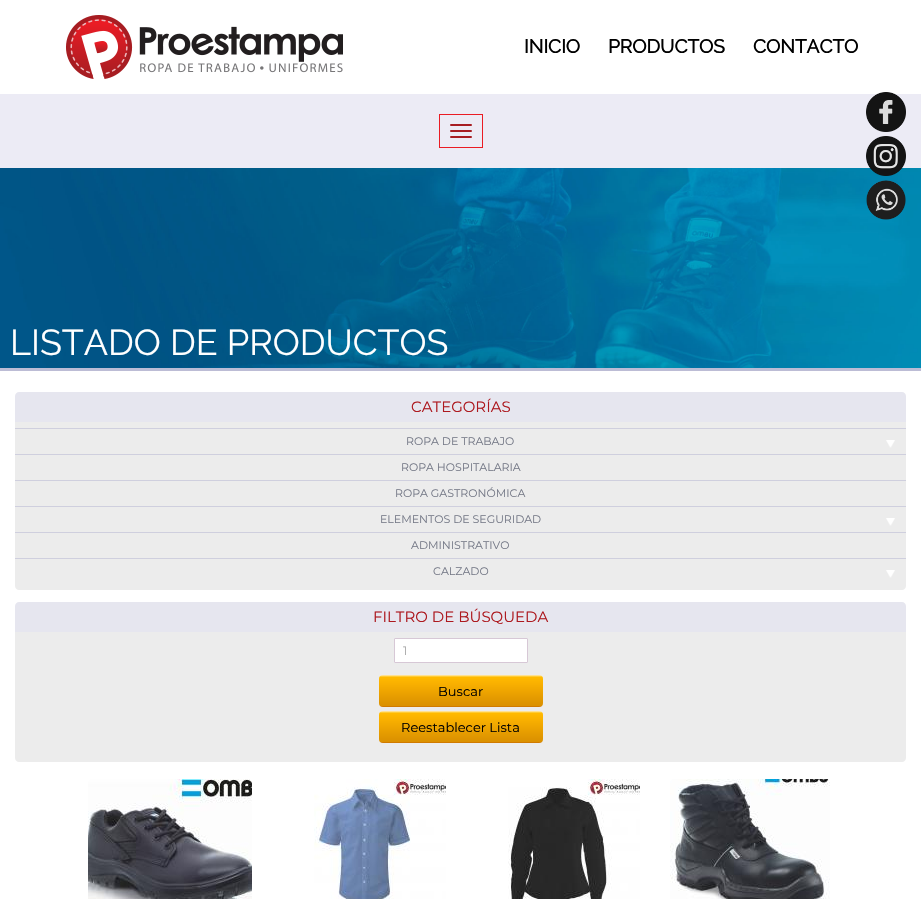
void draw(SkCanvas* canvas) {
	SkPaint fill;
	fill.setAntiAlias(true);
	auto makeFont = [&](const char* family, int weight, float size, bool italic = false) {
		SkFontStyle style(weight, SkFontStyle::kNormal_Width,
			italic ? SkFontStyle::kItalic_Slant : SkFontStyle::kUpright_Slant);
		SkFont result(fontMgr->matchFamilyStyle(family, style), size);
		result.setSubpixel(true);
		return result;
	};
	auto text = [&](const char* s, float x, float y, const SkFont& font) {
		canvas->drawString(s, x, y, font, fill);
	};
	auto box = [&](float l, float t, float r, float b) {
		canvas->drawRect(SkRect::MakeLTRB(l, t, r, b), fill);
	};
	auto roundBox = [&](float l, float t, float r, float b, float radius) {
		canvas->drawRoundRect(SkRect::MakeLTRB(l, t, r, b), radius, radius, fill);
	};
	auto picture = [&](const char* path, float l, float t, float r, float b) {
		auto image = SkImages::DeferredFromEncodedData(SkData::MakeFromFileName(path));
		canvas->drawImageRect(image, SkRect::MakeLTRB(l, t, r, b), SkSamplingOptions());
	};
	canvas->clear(0xFFFFFFFF);
	picture("image0.png", 66, 15, 343, 79);
	fill.setColor(0xFFECEBF5);
	box(0, 94, 921, 168);
	picture("image1.png", 866, 92, 906, 132);
	picture("image4.png", 0, 168, 921, 368);
	picture("image2.png", 866, 136, 906, 176);
	picture("image3.png", 866, 180, 906, 220);
	fill.setStyle(SkPaint::kStroke_Style);
	fill.setStrokeWidth(1);
	fill.setColor(0xFFEA1C24);
	canvas->drawRect(SkRect::MakeLTRB(439.5f, 114.5f, 482.5f, 147.5f), fill);
	fill.setStyle(SkPaint::kFill_Style);
	fill.setColor(0xFFA71D22);
	roundBox(450, 124, 472, 126, 1);
	roundBox(450, 130, 472, 132, 1);
	roundBox(450, 136, 472, 138, 1);
	fill.setColor(0xFFBCBCD5);
	box(0, 368, 921, 371);
	fill.setColor(0xFFE6E6EF);
	canvas->drawPath(SkPathBuilder().moveTo(19, 392).lineTo(902, 392).cubicTo(904, 392, 906, 394, 906, 396).lineTo(906, 422).lineTo(15, 422).lineTo(15, 396).cubicTo(15, 394, 17, 392, 19, 392).close().detach(), fill);
	fill.setColor(0xFFECECEC);
	canvas->drawPath(SkPathBuilder().moveTo(15, 422).lineTo(906, 422).lineTo(906, 586).cubicTo(906, 588, 904, 590, 902, 590).lineTo(19, 590).cubicTo(17, 590, 15, 588, 15, 586).close().detach(), fill);
	fill.setColor(0xFFCFCFDE);
	box(15, 428, 906, 429);
	picture("image5.png", 886, 440, 895, 448);
	box(15, 454, 906, 455);
	box(15, 480, 906, 481);
	box(15, 506, 906, 507);
	picture("image5.png", 886, 518, 895, 526);
	box(15, 532, 906, 533);
	box(15, 558, 906, 559);
	picture("image5.png", 886, 570, 895, 578);
	fill.setColor(0xFFE6E6EF);
	canvas->drawPath(SkPathBuilder().moveTo(19, 602).lineTo(902, 602).cubicTo(904, 602, 906, 604, 906, 606).lineTo(906, 632).lineTo(15, 632).lineTo(15, 606).cubicTo(15, 604, 17, 602, 19, 602).close().detach(), fill);
	fill.setColor(0xFFECECEC);
	canvas->drawPath(SkPathBuilder().moveTo(15, 632).lineTo(906, 632).lineTo(906, 758).cubicTo(906, 760, 904, 762, 902, 762).lineTo(19, 762).cubicTo(17, 762, 15, 760, 15, 758).close().detach(), fill);
	fill.setColor(0xFFFFFFFF);
	canvas->drawRoundRect(SkRect::MakeLTRB(394.5f, 638.5f, 527.5f, 662.5f), 0.5f, 0.5f, fill);
	fill.setStyle(SkPaint::kStroke_Style);
	fill.setColor(0xFFD7C8D6);
	canvas->drawRoundRect(SkRect::MakeLTRB(394.5f, 638.5f, 527.5f, 662.5f), 0.5f, 0.5f, fill);
	picture("image6.png", 379, 675, 543, 707);
	picture("image6.png", 379, 711, 543, 743);
	picture("image7.png", 88, 779, 252, 899);
	picture("image8.png", 314, 779, 446, 899);
	picture("image9.png", 508, 779, 640, 899);
	picture("image10.png", 670, 779, 830, 899);
	auto font1 = makeFont("Raleway", 700, 19);
	fill.setStyle(SkPaint::kFill_Style);
	fill.setColor(0xFF000000);
	text("INICIO", 524, 53, font1);
	text("PRODUCTOS", 608, 53, font1);
	text("CONTACTO", 753, 53, font1);
	auto font2 = makeFont("Raleway", 400, 36);
	fill.setColor(0xFFFFFFFF);
	text("LISTADO DE PRODUCTOS", 10, 355, font2);
	auto font3 = makeFont("Montserrat", 400, 15);
	fill.setColor(0xFFAD191F);
	text("CATEGORÍAS", 411, 412, font3);
	auto font4 = makeFont("Montserrat", 400, 11);
	fill.setColor(0xFF767A88);
	text("ROPA DE TRABAJO", 406, 445, font4);
	text("ROPA HOSPITALARIA", 401, 471, font4);
	text("ROPA GASTRONÓMICA", 395, 497, font4);
	text("ELEMENTOS DE SEGURIDAD", 380, 523, font4);
	text("ADMINISTRATIVO", 411, 549, font4);
	text("CALZADO", 433, 575, font4);
	fill.setColor(0xFFAD191F);
	text("FILTRO DE BÚSQUEDA", 373, 622, font3);
	auto font5 = makeFont("Montserrat", 400, 12);
	fill.setColor(0xFFA7A7A7);
	text("1", 403, 655, font5);
	auto font6 = makeFont("Montserrat", 400, 13);
	fill.setColor(0xFF000000);
	text("Buscar", 438, 696, font6);
	text("Reestablecer Lista", 401, 732, font6);
}
